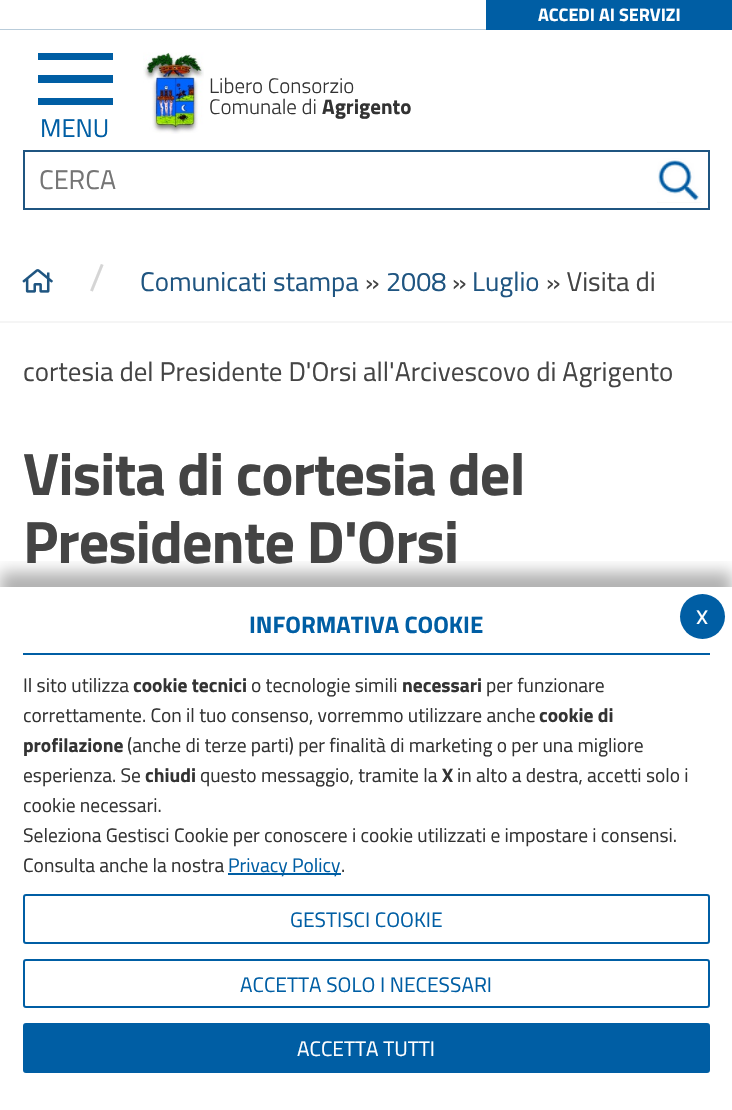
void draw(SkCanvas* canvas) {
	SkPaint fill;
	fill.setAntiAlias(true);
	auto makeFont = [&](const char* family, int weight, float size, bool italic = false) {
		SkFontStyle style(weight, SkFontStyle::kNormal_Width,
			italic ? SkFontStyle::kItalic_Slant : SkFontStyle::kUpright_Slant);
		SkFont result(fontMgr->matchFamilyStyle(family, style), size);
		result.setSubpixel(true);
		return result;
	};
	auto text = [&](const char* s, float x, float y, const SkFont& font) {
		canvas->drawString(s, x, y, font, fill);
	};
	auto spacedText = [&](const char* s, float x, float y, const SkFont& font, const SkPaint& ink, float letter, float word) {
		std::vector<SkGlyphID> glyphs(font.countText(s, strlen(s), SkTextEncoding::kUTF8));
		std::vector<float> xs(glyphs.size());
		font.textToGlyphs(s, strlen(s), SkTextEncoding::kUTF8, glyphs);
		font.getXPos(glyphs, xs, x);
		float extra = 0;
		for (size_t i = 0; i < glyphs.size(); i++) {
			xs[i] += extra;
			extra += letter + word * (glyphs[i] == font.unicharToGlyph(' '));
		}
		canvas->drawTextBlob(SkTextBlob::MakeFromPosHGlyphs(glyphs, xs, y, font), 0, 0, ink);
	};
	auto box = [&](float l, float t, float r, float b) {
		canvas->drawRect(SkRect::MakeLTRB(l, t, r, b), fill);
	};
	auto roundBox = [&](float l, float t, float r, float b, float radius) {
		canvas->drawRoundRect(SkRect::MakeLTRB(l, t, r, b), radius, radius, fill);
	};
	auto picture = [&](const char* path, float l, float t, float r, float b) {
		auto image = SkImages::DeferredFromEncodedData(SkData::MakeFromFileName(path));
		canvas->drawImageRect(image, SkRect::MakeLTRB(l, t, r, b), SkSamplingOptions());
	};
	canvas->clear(0xFFFFFFFF);
	fill.setColor(0xFFB9CCDA);
	box(0, 29, 486, 30);
	fill.setColor(0xFF005EA4);
	box(486, 0, 732, 30);
	picture("image0.png", 143, 52, 204, 134);
	fill.setStyle(SkPaint::kStroke_Style);
	fill.setStrokeWidth(2);
	fill.setColor(0xFF1F5581);
	canvas->drawRect(SkRect::MakeLTRB(24, 151, 709, 209), fill);
	fill.setStyle(SkPaint::kFill_Style);
	fill.setColor(0xFFF3F3F3);
	roundBox(657, 158, 702, 203, 1.5f);
	picture("image1.png", 657, 158, 702, 203);
	fill.setColor(0xFF005EA4);
	box(38, 53, 113, 60);
	box(38, 75, 113, 83);
	box(38, 98, 113, 105);
	fill.setColor(0xFFF5F5F5);
	box(0, 321, 732, 323);
	picture("image2.png", 22, 269, 53, 293);
	canvas->save();
	canvas->clipRect(SkRect::MakeLTRB(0, 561, 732, 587));
	fill.setColor(0x4D000000);
	fill.setMaskFilter(SkMaskFilter::MakeBlur(kNormal_SkBlurStyle, 7.5f));
	canvas->drawRect(SkRect::MakeLTRB(0, 572, 732, 1095), fill);
	fill.setMaskFilter(nullptr);
	canvas->restore();
	fill.setColor(0xFF005EA4);
	box(23, 653, 710, 655);
	box(228, 873, 341, 875);
	fill.setStyle(SkPaint::kStroke_Style);
	canvas->drawRoundRect(SkRect::MakeLTRB(24, 895, 709, 943), 2, 2, fill);
	canvas->drawRoundRect(SkRect::MakeLTRB(24, 960, 709, 1007), 2, 2, fill);
	fill.setStyle(SkPaint::kFill_Style);
	canvas->drawRoundRect(SkRect::MakeLTRB(24, 1024, 709, 1072), 2, 2, fill);
	fill.setStyle(SkPaint::kStroke_Style);
	canvas->drawRoundRect(SkRect::MakeLTRB(24, 1024, 709, 1072), 2, 2, fill);
	fill.setStyle(SkPaint::kFill_Style);
	canvas->drawCircle(702.5f, 616.5f, 22.5f, fill);
	auto font1 = makeFont("Titillium Web", 700, 18);
	fill.setColor(0xFFFFFFFF);
	text("ACCEDI AI SERVIZI", 538, 21, font1);
	auto font2 = makeFont("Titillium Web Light", 300, 21);
	fill.setColor(0xFF333333);
	text("Libero Consorzio", 209, 93, font2);
	text("Comunale di", 209, 114, font2);
	auto font3 = makeFont("Titillium Web", 700, 21);
	text("Agrigento", 322, 114, font3);
	auto font4 = makeFont("Titillium Web", 400, 27);
	fill.setColor(0xFF757575);
	text("CERCA", 39, 189, font4);
	auto font5 = makeFont("Titillium Web", 400, 25.5f);
	fill.setColor(0xFF005EA4);
	text("MENU", 40, 137, font5);
	auto font6 = makeFont("Titillium Web", 400, 38);
	fill.setColor(0xFFD5D5D5);
	text("/", 89, 291, font6);
	fill.setColor(0xFF1F5581);
	text("Comunicati stampa", 140, 291, font4);
	fill.setColor(0xFF444444);
	text("»", 365, 291, font4);
	fill.setColor(0xFF1F5581);
	text("2008", 386, 291, font4);
	fill.setColor(0xFF444444);
	text("»", 452, 291, font4);
	fill.setColor(0xFF1F5581);
	text("Luglio", 472, 291, font4);
	fill.setColor(0xFF444444);
	text("» Visita di", 546, 291, font4);
	text("cortesia del Presidente D'Orsi all'Arcivescovo di Agrigento", 23, 381, font4);
	auto font7 = makeFont("Titillium Web", 700, 60);
	spacedText("Visita di cortesia del", 23, 495, font7, fill, -1, 0);
	spacedText("Presidente D'Orsi", 23, 563, font7, fill, -1, 0);
	auto font8 = makeFont("Titillium Web", 700, 24);
	fill.setColor(0xFF005EA4);
	text("INFORMATIVA COOKIE", 249, 633, font8);
	auto font9 = makeFont("Titillium Web", 400, 19.5f);
	fill.setColor(0xFF333333);
	text("Il sito utilizza", 23, 692, font9);
	auto font10 = makeFont("Titillium Web", 700, 19.5f);
	text("cookie tecnici", 133, 692, font10);
	text("o tecnologie simili", 251, 692, font9);
	text("necessari", 402, 692, font10);
	text("per funzionare", 486, 692, font9);
	text("correttamente. Con il tuo consenso, vorremmo utilizzare anche", 23, 722, font9);
	text("cookie di", 539, 722, font10);
	text("profilazione", 23, 752, font10);
	text("(anche di terze parti) per finalità di marketing o per una migliore", 127, 752, font9);
	text("esperienza. Se", 23, 782, font9);
	text("chiudi", 145, 782, font10);
	text("questo messaggio, tramite la", 200, 782, font9);
	text("X", 442, 782, font10);
	text("in alto a destra, accetti solo i", 457, 782, font9);
	text("cookie necessari.", 23, 812, font9);
	text("Seleziona Gestisci Cookie per conoscere i cookie utilizzati e impostare i consensi.", 23, 842, font9);
	text("Consulta anche la nostra", 23, 872, font9);
	fill.setColor(0xFF005EA4);
	text("Privacy Policy", 228, 872, font9);
	fill.setColor(0xFF333333);
	text(".", 341, 872, font9);
	auto font11 = makeFont("Titillium Web", 400, 21);
	fill.setColor(0xFF005EA4);
	text("GESTISCI COOKIE", 290, 927, font11);
	text("ACCETTA SOLO I NECESSARI", 240, 992, font11);
	fill.setColor(0xFFFFFFFF);
	text("ACCETTA TUTTI", 297, 1056, font11);
	text("x", 696, 624, font4);
}
